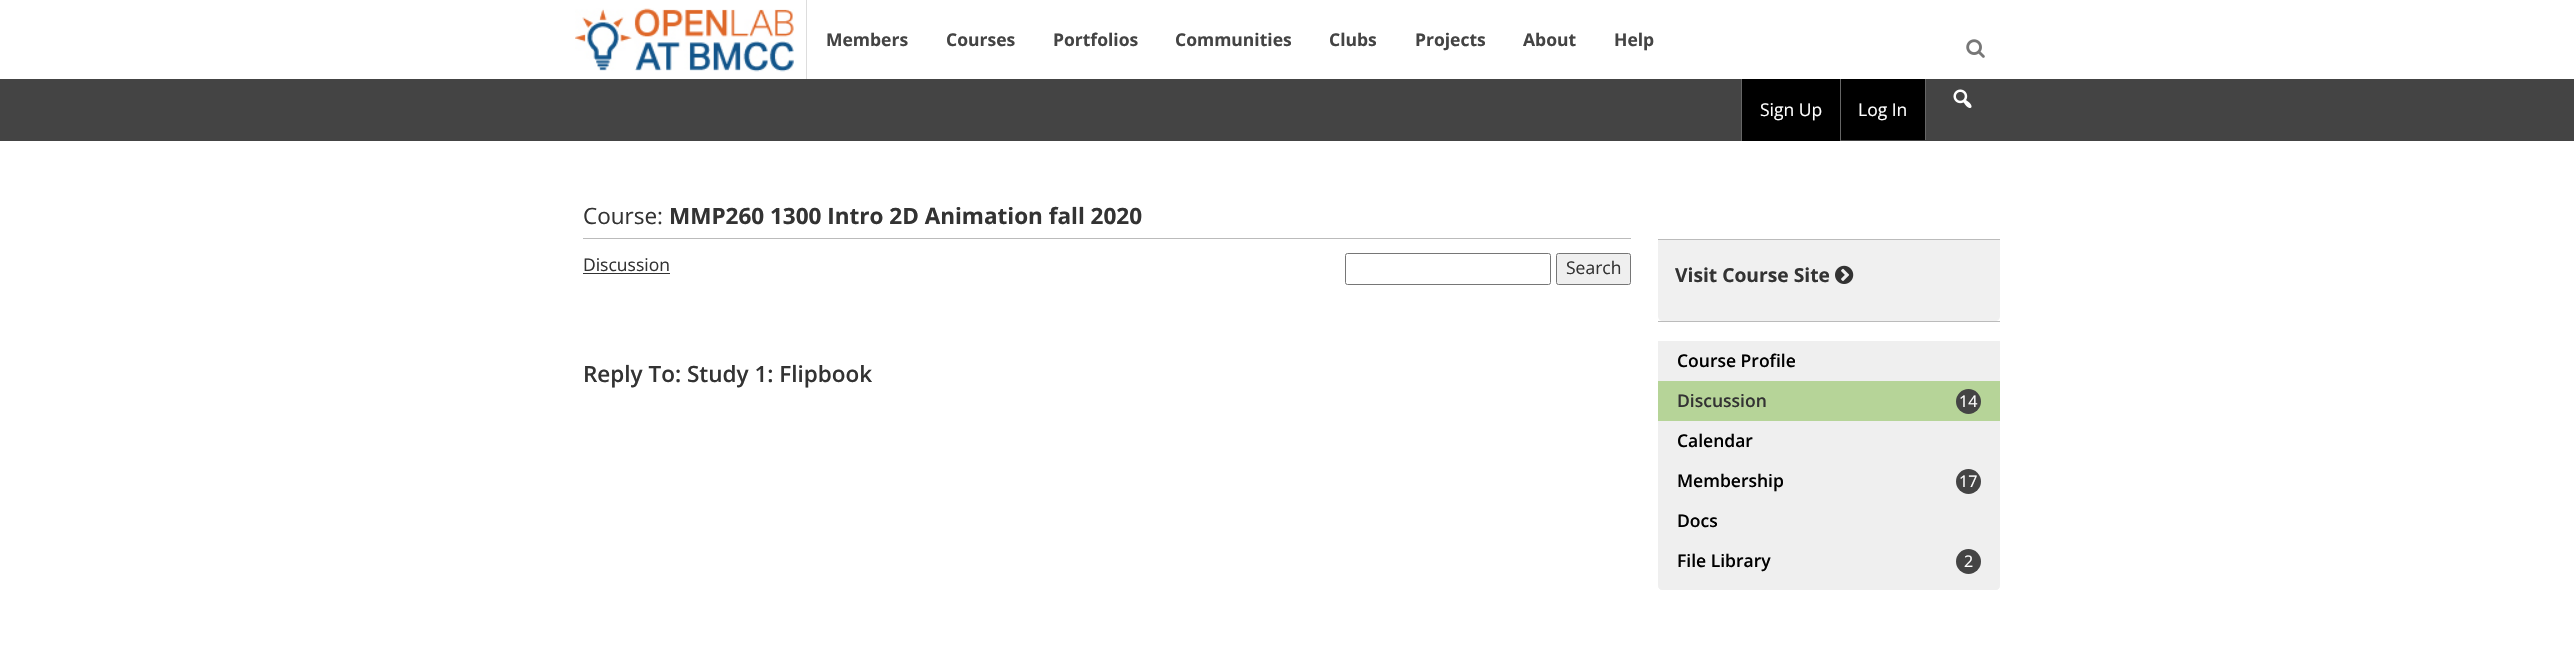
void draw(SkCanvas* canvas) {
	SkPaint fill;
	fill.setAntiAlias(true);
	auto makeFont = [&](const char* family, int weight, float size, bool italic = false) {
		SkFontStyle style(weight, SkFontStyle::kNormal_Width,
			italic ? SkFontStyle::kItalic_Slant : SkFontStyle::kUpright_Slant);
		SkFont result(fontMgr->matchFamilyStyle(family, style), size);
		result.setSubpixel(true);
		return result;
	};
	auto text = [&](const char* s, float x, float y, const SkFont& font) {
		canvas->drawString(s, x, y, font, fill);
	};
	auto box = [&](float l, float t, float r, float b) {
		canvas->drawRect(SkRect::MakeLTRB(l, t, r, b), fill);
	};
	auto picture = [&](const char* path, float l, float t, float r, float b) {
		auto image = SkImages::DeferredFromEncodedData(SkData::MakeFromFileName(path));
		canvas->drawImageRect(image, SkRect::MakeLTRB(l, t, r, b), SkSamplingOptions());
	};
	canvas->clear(0xFFFFFFFF);
	fill.setColor(0xFFDDDDDD);
	box(806, 0, 807, 79);
	picture("image0.png", 575, 8, 794, 72);
	picture("image1.png", 1966, 39, 1985, 58);
	fill.setColor(0xFFBBBBBB);
	box(583, 238, 1631, 239);
	fill.setColor(0xFF333333);
	box(583, 273, 670, 274);
	fill.setStyle(SkPaint::kStroke_Style);
	fill.setStrokeWidth(1);
	fill.setColor(0xFF767676);
	canvas->drawRoundRect(SkRect::MakeLTRB(1345.5f, 253.5f, 1550.5f, 284.5f), 2, 2, fill);
	fill.setStyle(SkPaint::kFill_Style);
	fill.setColor(0xFFEFEFEF);
	canvas->drawRoundRect(SkRect::MakeLTRB(1556.5f, 253.5f, 1630.5f, 284.5f), 2, 2, fill);
	fill.setStyle(SkPaint::kStroke_Style);
	fill.setColor(0xFF767676);
	canvas->drawRoundRect(SkRect::MakeLTRB(1556.5f, 253.5f, 1630.5f, 284.5f), 2, 2, fill);
	fill.setStyle(SkPaint::kFill_Style);
	fill.setColor(0xFFF0F0F0);
	canvas->drawPath(SkPathBuilder().moveTo(1658, 239).lineTo(2000, 239).lineTo(2000, 316).cubicTo(2000, 319, 1998, 321, 1995, 321).lineTo(1663, 321).cubicTo(1660, 321, 1658, 319, 1658, 316).close().detach(), fill);
	fill.setColor(0xFFBBBBBB);
	box(1658, 239, 2000, 240);
	picture("image2.png", 1835, 265, 1854, 284);
	box(1658, 321, 2000, 322);
	fill.setColor(0xFFF0F0F0);
	canvas->drawPath(SkPathBuilder().moveTo(1658, 341).lineTo(2000, 341).lineTo(2000, 585).cubicTo(2000, 588, 1998, 590, 1995, 590).lineTo(1663, 590).cubicTo(1660, 590, 1658, 588, 1658, 585).close().detach(), fill);
	fill.setColor(0xCCEFEFEF);
	canvas->drawPath(SkPathBuilder().moveTo(1658, 341).lineTo(2000, 341).lineTo(2000, 585).cubicTo(2000, 588, 1998, 590, 1995, 590).lineTo(1663, 590).cubicTo(1660, 590, 1658, 588, 1658, 585).close().detach(), fill);
	fill.setColor(0xFFB6D498);
	box(1658, 381, 2000, 421);
	fill.setColor(0xFF444444);
	canvas->drawCircle(1968.5f, 401.5f, 12.5f, fill);
	canvas->drawCircle(1968.5f, 481.5f, 12.5f, fill);
	canvas->drawCircle(1968.5f, 561.5f, 12.5f, fill);
	box(0, 79, 2574, 141);
	picture("image3.png", 1953, 89, 1972, 108);
	fill.setColor(0xFF000000);
	box(1742, 79, 1840, 141);
	fill.setColor(0xFF666666);
	box(1840, 79, 1841, 141);
	box(1741, 79, 1742, 141);
	fill.setColor(0xFF000000);
	box(1841, 79, 1925, 140);
	fill.setColor(0xFF666666);
	box(1925, 79, 1926, 140);
	auto font1 = makeFont("Open Sans", 700, 17.5f);
	fill.setColor(0xFF444444);
	text("Members", 826, 46, font1);
	text("Courses", 946, 46, font1);
	text("Portfolios", 1053, 46, font1);
	text("Communities", 1175, 46, font1);
	text("Clubs", 1329, 46, font1);
	text("Projects", 1415, 46, font1);
	text("About", 1523, 46, font1);
	text("Help", 1614, 46, font1);
	auto font2 = makeFont("Open Sans", 400, 22.5f);
	fill.setColor(0xFF333333);
	text("Course:", 583, 224, font2);
	auto font3 = makeFont("Open Sans", 700, 22.5f);
	text("MMP260 1300 Intro 2D Animation fall 2020", 669, 224, font3);
	auto font4 = makeFont("Open Sans", 400, 17.5f);
	text("Discussion", 583, 271, font4);
	text("Search", 1566, 274, font4);
	auto font5 = makeFont("Open Sans", 600, 22.5f);
	text("Reply To: Study 1: Flipbook", 583, 382, font5);
	auto font6 = makeFont("Open Sans", 700, 19.25f);
	text("Visit Course Site", 1675, 282, font6);
	auto font7 = makeFont("Open Sans", 600, 17.5f);
	fill.setColor(0xFF000000);
	text("Course Profile", 1677, 367, font7);
	fill.setColor(0xFF333333);
	text("Discussion", 1677, 407, font7);
	auto font8 = makeFont("Open Sans", 400, 16);
	fill.setColor(0xFFFFFFFF);
	text("14", 1959, 407, font8);
	fill.setColor(0xFF000000);
	text("Calendar", 1677, 447, font7);
	text("Membership", 1677, 487, font7);
	fill.setColor(0xFFFFFFFF);
	text("17", 1959, 487, font8);
	fill.setColor(0xFF000000);
	text("Docs", 1677, 527, font7);
	text("File Library", 1677, 567, font7);
	fill.setColor(0xFFFFFFFF);
	text("2", 1964, 567, font8);
	text("Sign Up", 1760, 116, font4);
	text("Log In", 1858, 116, font4);
}
